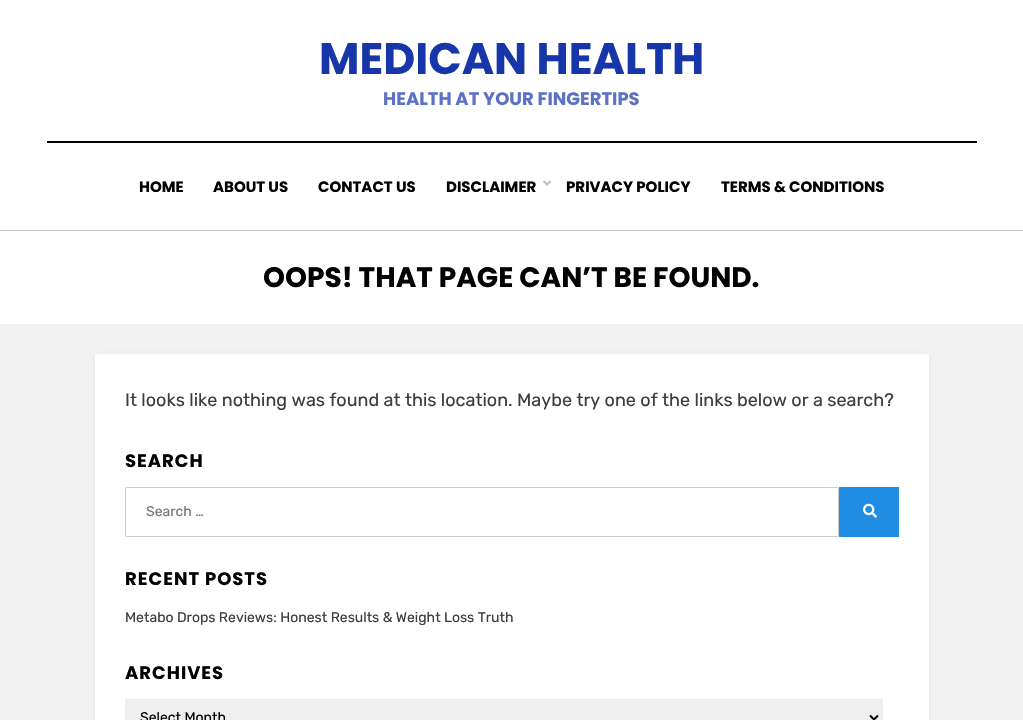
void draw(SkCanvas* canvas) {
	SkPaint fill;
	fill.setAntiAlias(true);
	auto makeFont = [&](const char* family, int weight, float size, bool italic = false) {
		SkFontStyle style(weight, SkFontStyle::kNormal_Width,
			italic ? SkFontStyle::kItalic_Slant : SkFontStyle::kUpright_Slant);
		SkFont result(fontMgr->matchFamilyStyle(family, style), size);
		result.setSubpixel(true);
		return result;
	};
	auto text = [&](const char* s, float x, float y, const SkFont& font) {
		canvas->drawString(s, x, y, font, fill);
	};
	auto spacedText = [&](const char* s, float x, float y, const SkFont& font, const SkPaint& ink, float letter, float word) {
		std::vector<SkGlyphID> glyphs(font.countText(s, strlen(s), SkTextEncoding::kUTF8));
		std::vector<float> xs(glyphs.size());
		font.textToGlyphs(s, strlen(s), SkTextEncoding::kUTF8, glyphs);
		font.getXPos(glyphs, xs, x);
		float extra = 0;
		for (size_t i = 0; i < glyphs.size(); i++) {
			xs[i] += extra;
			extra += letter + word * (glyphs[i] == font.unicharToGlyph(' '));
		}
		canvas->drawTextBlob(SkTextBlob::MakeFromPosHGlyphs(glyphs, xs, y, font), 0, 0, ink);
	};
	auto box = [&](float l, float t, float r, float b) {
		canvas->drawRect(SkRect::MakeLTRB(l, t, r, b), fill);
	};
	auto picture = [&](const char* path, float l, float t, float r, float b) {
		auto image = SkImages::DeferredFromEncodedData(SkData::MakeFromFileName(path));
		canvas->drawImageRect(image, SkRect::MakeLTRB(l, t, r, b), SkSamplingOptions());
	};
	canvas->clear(0xFFF2F2F2);
	fill.setColor(0xFFFFFFFF);
	box(0, 0, 1023, 230);
	fill.setColor(0xFF020202);
	box(47, 141, 977, 143);
	picture("image0.png", 543, 180, 551, 186);
	fill.setColor(0xFFFFFFFF);
	box(0, 231, 1023, 324);
	fill.setColor(0xFFCCCCCC);
	box(0, 230, 1023, 231);
	fill.setColor(0x0D000001);
	fill.setMaskFilter(SkMaskFilter::MakeBlur(kNormal_SkBlurStyle, 2.5f));
	canvas->drawRect(SkRect::MakeLTRB(95, 355, 929, 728), fill);
	fill.setMaskFilter(nullptr);
	fill.setColor(0xFFFFFFFF);
	box(95, 354, 929, 720);
	fill.setStyle(SkPaint::kStroke_Style);
	fill.setStrokeWidth(1);
	fill.setColor(0xFFCCCCCC);
	canvas->drawRoundRect(SkRect::MakeLTRB(125.5f, 487.5f, 838.5f, 536.5f), 1.5f, 1.5f, fill);
	fill.setStyle(SkPaint::kFill_Style);
	fill.setColor(0xFF208DE5);
	box(839, 487, 899, 537);
	picture("image1.png", 863, 503, 877, 518);
	fill.setColor(0xFFEFEFEF);
	canvas->drawRoundRect(SkRect::MakeLTRB(125.5f, 699.5f, 882.5f, 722.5f), 1.5f, 1.5f, fill);
	fill.setStyle(SkPaint::kStroke_Style);
	fill.setColor(0xFFEBEBEB);
	canvas->drawRoundRect(SkRect::MakeLTRB(125.5f, 699.5f, 882.5f, 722.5f), 1.5f, 1.5f, fill);
	fill.setStrokeWidth(2);
	fill.setColor(0xFF020202);
	canvas->drawPath(SkPathBuilder().moveTo(870, 715.5f).lineTo(874, 719.5f).lineTo(878, 715.5f).detach(), fill);
	auto font1 = makeFont("Poppins", 700, 44);
	fill.setStyle(SkPaint::kFill_Style);
	fill.setColor(0xFF1636AA);
	text("MEDICAN HEALTH", 319, 74, font1);
	auto font2 = makeFont("Poppins", 700, 18);
	fill.setColor(0xFF5C72C4);
	text("HEALTH AT YOUR FINGERTIPS", 383, 105, font2);
	auto font3 = makeFont("Poppins", 700, 15);
	fill.setColor(0xFF020202);
	text("HOME", 139, 192, font3);
	text("ABOUT US", 213, 192, font3);
	text("CONTACT US", 318, 192, font3);
	text("DISCLAIMER", 446, 192, font3);
	text("PRIVACY POLICY", 566, 192, font3);
	text("TERMS & CONDITIONS", 721, 192, font3);
	auto font4 = makeFont("Poppins", 700, 28);
	text("OOPS! THAT PAGE CAN’T BE FOUND.", 263, 287, font4);
	auto font5 = makeFont("Rubik", 400, 18);
	fill.setColor(0xFF3D3D3D);
	text("It looks like nothing was found at this location. Maybe try one of the links below or a search?", 125, 406, font5);
	fill.setColor(0xFF020202);
	spacedText("SEARCH", 125, 467, font2, fill, 1, 0);
	auto font6 = makeFont("Rubik", 400, 14);
	fill.setColor(0xFF757575);
	text("Search …", 146, 516, font6);
	fill.setColor(0xFF020202);
	spacedText("RECENT POSTS", 125, 585, font2, fill, 1, 0);
	fill.setColor(0xFF3D3D3D);
	text("Metabo Drops Reviews: Honest Results & Weight Loss Truth", 125, 622, font6);
	fill.setColor(0xFF020202);
	spacedText("ARCHIVES", 125, 679, font2, fill, 1, 0);
	text("Select Month", 140, 722, font6);
}
